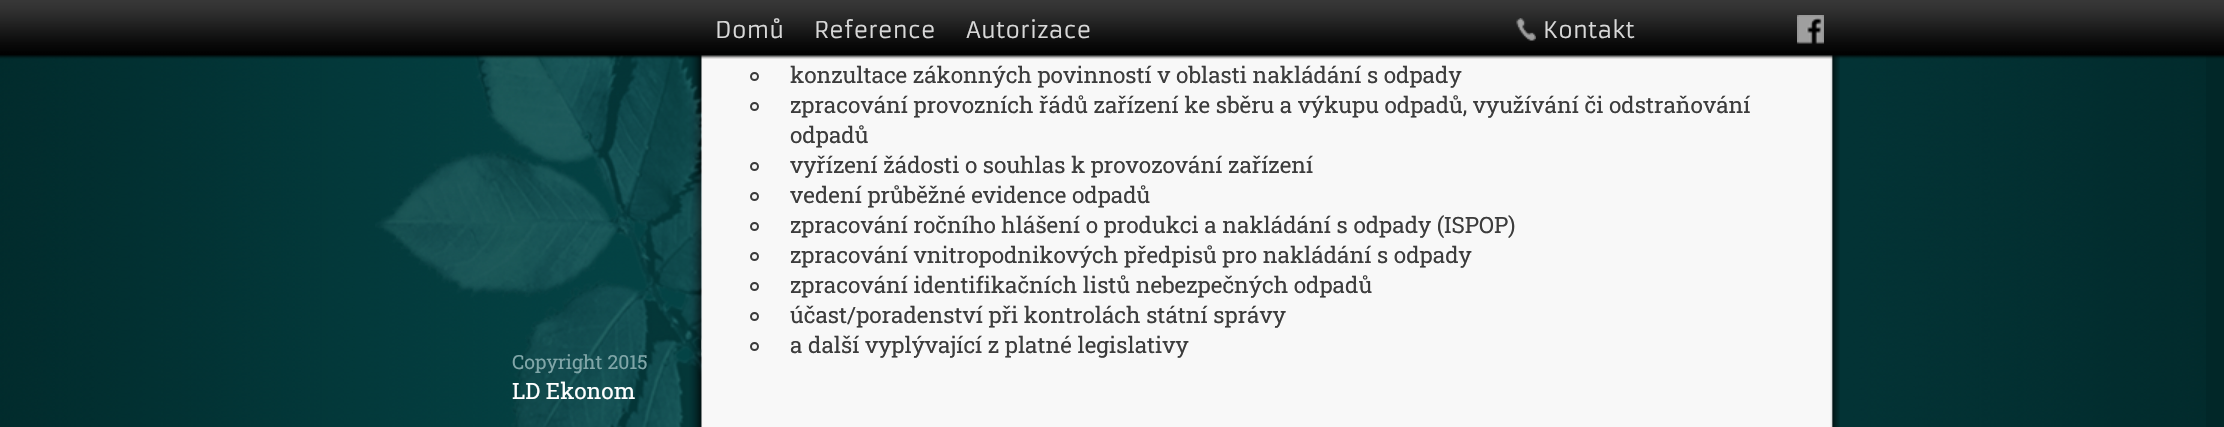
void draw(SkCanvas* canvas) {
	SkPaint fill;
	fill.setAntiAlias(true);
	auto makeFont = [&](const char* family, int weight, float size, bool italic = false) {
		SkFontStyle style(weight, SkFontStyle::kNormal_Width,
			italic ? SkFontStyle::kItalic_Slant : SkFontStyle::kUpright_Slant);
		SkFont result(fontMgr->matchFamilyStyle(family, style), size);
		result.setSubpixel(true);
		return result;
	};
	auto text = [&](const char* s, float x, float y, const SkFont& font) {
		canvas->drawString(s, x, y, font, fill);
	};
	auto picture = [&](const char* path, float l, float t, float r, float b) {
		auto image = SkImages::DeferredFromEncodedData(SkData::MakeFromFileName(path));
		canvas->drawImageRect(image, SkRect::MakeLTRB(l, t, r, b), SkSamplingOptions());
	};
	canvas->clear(0xFF012728);
	picture("image0.png", 0, 55, 2206, 427);
	picture("image4.png", 375, 55, 702, 427);
	picture("image1.png", 0, 0, 2224, 59);
	picture("image2.png", 1516, 18, 1536, 41);
	picture("image3.png", 1797, 15, 1824, 44);
	fill.setStyle(SkPaint::kStroke_Style);
	fill.setStrokeWidth(2);
	fill.setColor(0xFF3C3C3C);
	canvas->drawCircle(754.5f, 76.5f, 3.5f, fill);
	canvas->drawCircle(754.5f, 106.5f, 3.5f, fill);
	canvas->drawCircle(754.5f, 166.5f, 3.5f, fill);
	canvas->drawCircle(754.5f, 196.5f, 3.5f, fill);
	canvas->drawCircle(754.5f, 226.5f, 3.5f, fill);
	canvas->drawCircle(754.5f, 256.5f, 3.5f, fill);
	canvas->drawCircle(754.5f, 286.5f, 3.5f, fill);
	canvas->drawCircle(754.5f, 316.5f, 3.5f, fill);
	canvas->drawCircle(754.5f, 346.5f, 3.5f, fill);
	auto font1 = makeFont("Armata", 400, 22.5f);
	fill.setStyle(SkPaint::kFill_Style);
	fill.setColor(0xFFD8D8D8);
	text("Domů", 715, 38, font1);
	text("Reference", 814, 38, font1);
	text("Autorizace", 966, 38, font1);
	text("Kontakt", 1543, 38, font1);
	auto font2 = makeFont("Roboto Slab", 400, 22.5f);
	fill.setColor(0xFF3C3C3C);
	text("konzultace zákonných povinností v oblasti nakládání s odpady", 790, 83, font2);
	text("zpracování provozních řádů zařízení ke sběru a výkupu odpadů, využívání či odstraňování", 790, 113, font2);
	text("odpadů", 790, 143, font2);
	text("vyřízení žádosti o souhlas k provozování zařízení", 790, 173, font2);
	text("vedení průběžné evidence odpadů", 790, 203, font2);
	text("zpracování ročního hlášení o produkci a nakládání s odpady (ISPOP)", 790, 233, font2);
	text("zpracování vnitropodnikových předpisů pro nakládání s odpady", 790, 263, font2);
	text("zpracování identifikačních listů nebezpečných odpadů", 790, 293, font2);
	text("účast/poradenství při kontrolách státní správy", 790, 323, font2);
	text("a další vyplývající z platné legislativy", 790, 353, font2);
	auto font3 = makeFont("Roboto Slab", 400, 19.5f);
	fill.setColor(0xFF80A6A8);
	text("Copyright 2015", 512, 369, font3);
	fill.setColor(0xFFFFFFFF);
	text("LD Ekonom", 512, 399, font2);
}
